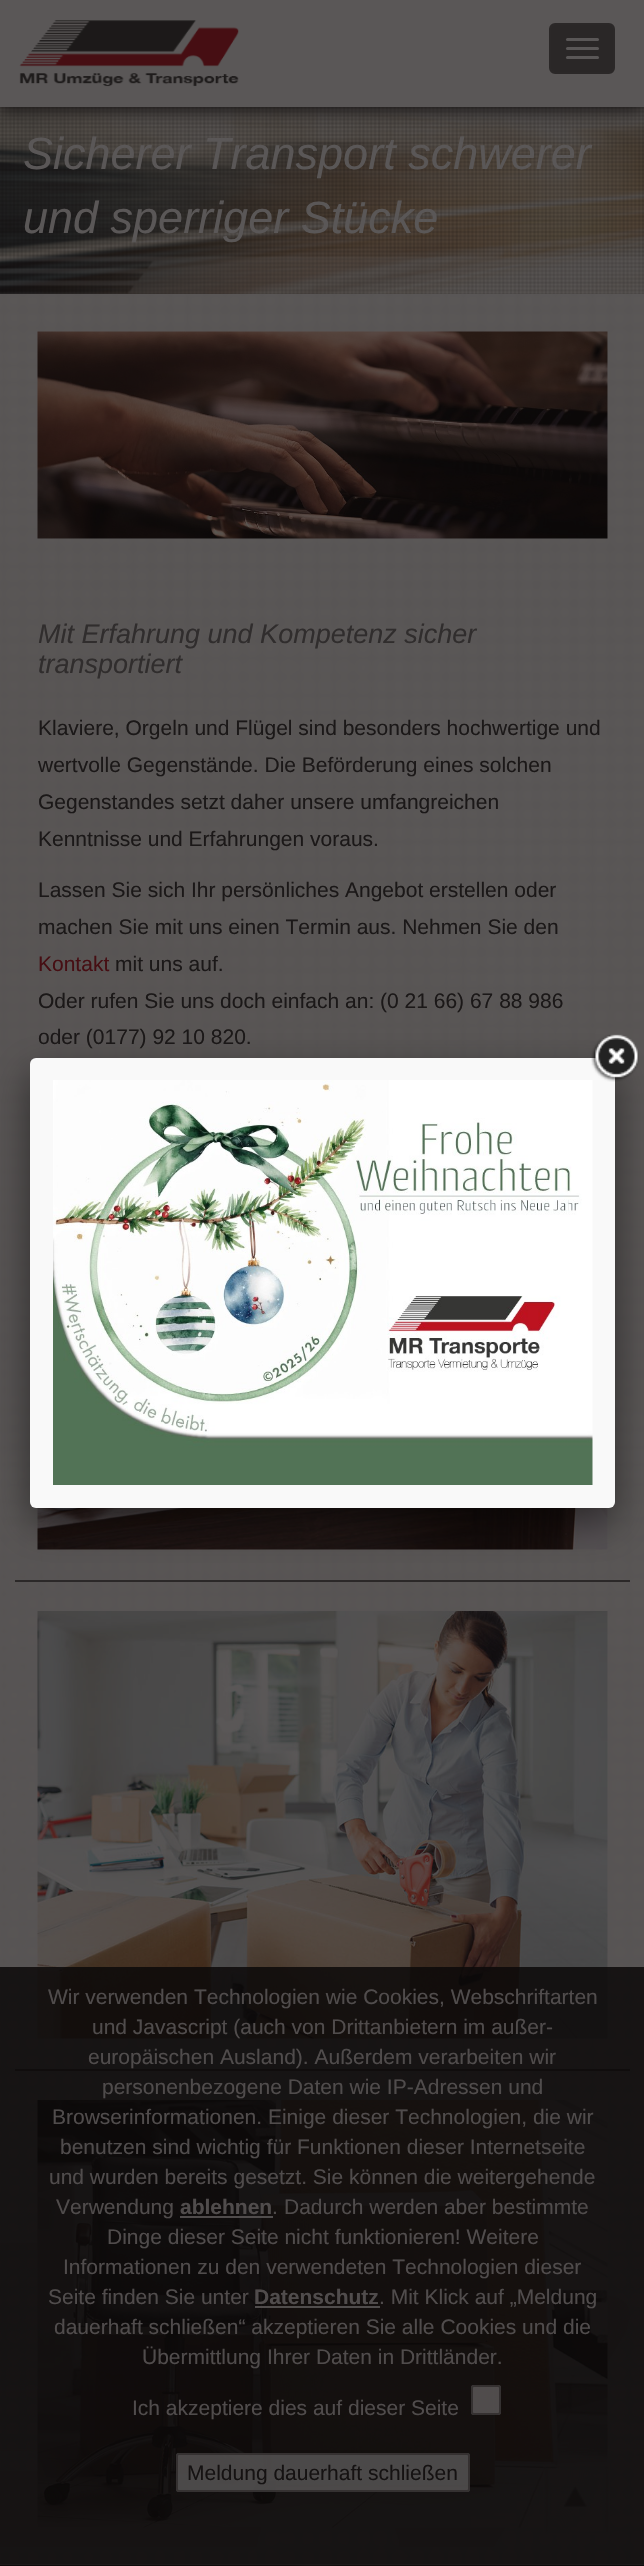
void draw(SkCanvas* canvas) {
	SkPaint fill;
	fill.setAntiAlias(true);
	auto makeFont = [&](const char* family, int weight, float size, bool italic = false) {
		SkFontStyle style(weight, SkFontStyle::kNormal_Width,
			italic ? SkFontStyle::kItalic_Slant : SkFontStyle::kUpright_Slant);
		SkFont result(fontMgr->matchFamilyStyle(family, style), size);
		result.setSubpixel(true);
		return result;
	};
	auto text = [&](const char* s, float x, float y, const SkFont& font) {
		canvas->drawString(s, x, y, font, fill);
	};
	auto box = [&](float l, float t, float r, float b) {
		canvas->drawRect(SkRect::MakeLTRB(l, t, r, b), fill);
	};
	auto roundBox = [&](float l, float t, float r, float b, float radius) {
		canvas->drawRoundRect(SkRect::MakeLTRB(l, t, r, b), radius, radius, fill);
	};
	auto picture = [&](const char* path, float l, float t, float r, float b) {
		auto image = SkImages::DeferredFromEncodedData(SkData::MakeFromFileName(path));
		canvas->drawImageRect(image, SkRect::MakeLTRB(l, t, r, b), SkSamplingOptions());
	};
	canvas->clear(0xFFFFFFFF);
	picture("image1.png", 0, 107, 644, 294);
	fill.setColor(0xFF1B1818);
	fill.setMaskFilter(SkMaskFilter::MakeBlur(kNormal_SkBlurStyle, 7.5f));
	canvas->drawRect(SkRect::MakeLTRB(0, 5, 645, 111), fill);
	fill.setMaskFilter(nullptr);
	fill.setColor(0xFF5A5757);
	box(0, 0, 644, 107);
	picture("image0.png", 19, 20, 239, 87);
	fill.setColor(0xFF2A2727);
	canvas->drawRoundRect(SkRect::MakeLTRB(550, 24, 614, 73), 5, 5, fill);
	fill.setStyle(SkPaint::kStroke_Style);
	fill.setStrokeWidth(2);
	fill.setColor(0xFF2B2828);
	canvas->drawRoundRect(SkRect::MakeLTRB(550, 24, 614, 73), 5, 5, fill);
	fill.setStyle(SkPaint::kFill_Style);
	fill.setColor(0xFF5A5757);
	roundBox(566, 38, 599, 41, 1.5f);
	roundBox(566, 47, 599, 50, 1.5f);
	roundBox(566, 56, 599, 59, 1.5f);
	picture("image2.png", 0, 294, 644, 2565);
	picture("image3.png", 0, 2242, 630, 2548);
	roundBox(38, 332, 608, 539, 8);
	picture("image4.png", 37, 331, 608, 539);
	picture("image5.png", 37, 1508, 608, 1550);
	fill.setColor(0xFF2B2828);
	box(15, 1580, 630, 1582);
	picture("image6.png", 37, 1611, 608, 2039);
	box(15, 2069, 630, 2071);
	picture("image7.png", 37, 2100, 608, 2528);
	fill.setColor(0x80000000);
	fill.setMaskFilter(SkMaskFilter::MakeBlur(kNormal_SkBlurStyle, 19));
	canvas->drawRoundRect(SkRect::MakeLTRB(30, 1073, 615, 1523), 6, 6, fill);
	fill.setMaskFilter(nullptr);
	fill.setColor(0xFFF9F9F9);
	roundBox(30, 1058, 615, 1508, 6);
	picture("image9.png", 53, 1080, 593, 1485);
	picture("image8.png", 591, 1034, 639, 1082);
	picture("image10.png", 542, 2463, 610, 2535);
	picture("image11.png", 0, 2565, 644, 2566);
	fill.setColor(0xD90B0808);
	box(0, 1967, 644, 2566);
	fill.setColor(0xD95A5757);
	box(180, 2216, 273, 2218);
	box(255, 2306, 380, 2308);
	roundBox(471, 2385, 501, 2415, 3);
	fill.setStyle(SkPaint::kStroke_Style);
	fill.setColor(0xD9302D2D);
	canvas->drawRoundRect(SkRect::MakeLTRB(472, 2386, 500, 2414), 2, 2, fill);
	fill.setStyle(SkPaint::kFill_Style);
	fill.setColor(0xD9555252);
	roundBox(176, 2453, 470, 2492, 3);
	fill.setStyle(SkPaint::kStroke_Style);
	fill.setColor(0xD9302D2D);
	canvas->drawRoundRect(SkRect::MakeLTRB(177, 2454, 469, 2491), 2, 2, fill);
	auto font1 = makeFont("Liberation Sans", 400, 45, true);
	fill.setStyle(SkPaint::kFill_Style);
	fill.setColor(0xFF5A5757);
	text("Sicherer Transport schwerer", 23, 169, font1);
	text("und sperriger Stücke", 23, 233, font1);
	auto font2 = makeFont("Liberation Sans", 400, 27, true);
	fill.setColor(0xFF302D2D);
	text("Mit Erfahrung und Kompetenz sicher", 38, 643, font2);
	text("transportiert", 38, 673, font2);
	auto font3 = makeFont("Liberation Sans", 400, 21);
	fill.setColor(0xFF1B1818);
	text("Klaviere, Orgeln und Flügel sind besonders hochwertige und", 38, 735, font3);
	text("wertvolle Gegenstände. Die Beförderung eines solchen", 38, 772, font3);
	text("Gegenstandes setzt daher unsere umfangreichen", 38, 809, font3);
	text("Kenntnisse und Erfahrungen voraus.", 38, 846, font3);
	text("Lassen Sie sich Ihr persönliches Angebot erstellen oder", 38, 897, font3);
	text("machen Sie mit uns einen Termin aus. Nehmen Sie den", 38, 934, font3);
	fill.setColor(0xFF460E13);
	text("Kontakt", 38, 971, font3);
	fill.setColor(0xFF1B1818);
	text("mit uns auf.", 115, 971, font3);
	text("Oder rufen Sie uns doch einfach an: (0 21 66) 67 88 986", 38, 1008, font3);
	text("oder (0177) 92 10 820.", 38, 1044, font3);
	fill.setColor(0xFF504C4C);
	text("Wir verwenden Technologien wie Cookies, Webschriftarten", 48, 2004, font3);
	text("und Javascript (auch von Drittanbietern im außer-", 92, 2034, font3);
	text("europäischen Ausland). Außerdem verarbeiten wir", 88, 2064, font3);
	text("personenbezogene Daten wie IP-Adressen und", 102, 2094, font3);
	text("Browserinformationen. Einige dieser Technologien, die wir", 52, 2124, font3);
	text("benutzen sind wichtig für Funktionen dieser Internetseite", 60, 2154, font3);
	text("und wurden bereits gesetzt. Sie können die weitergehende", 49, 2184, font3);
	text("Verwendung", 56, 2214, font3);
	auto font4 = makeFont("Liberation Sans", 700, 21);
	text("ablehnen", 180, 2214, font4);
	text(".", 272, 2214, font3);
	text("Dadurch werden aber bestimmte", 284, 2214, font3);
	text("Dinge dieser Seite nicht funktionieren! Weitere", 107, 2244, font3);
	text("Informationen zu den verwendeten Technologien dieser", 63, 2274, font3);
	text("Seite finden Sie unter", 48, 2304, font3);
	text("Datenschutz", 254, 2304, font4);
	text(". Mit Klick auf „Meldung", 379, 2304, font3);
	text("dauerhaft schließen“ akzeptieren Sie alle Cookies und die", 54, 2334, font3);
	text("Übermittlung Ihrer Daten in Drittländer.", 142, 2364, font3);
	text("Ich akzeptiere dies auf dieser Seite", 132, 2415, font3);
	fill.setColor(0xFF151212);
	text("Meldung dauerhaft schließen", 187, 2480, font3);
}
